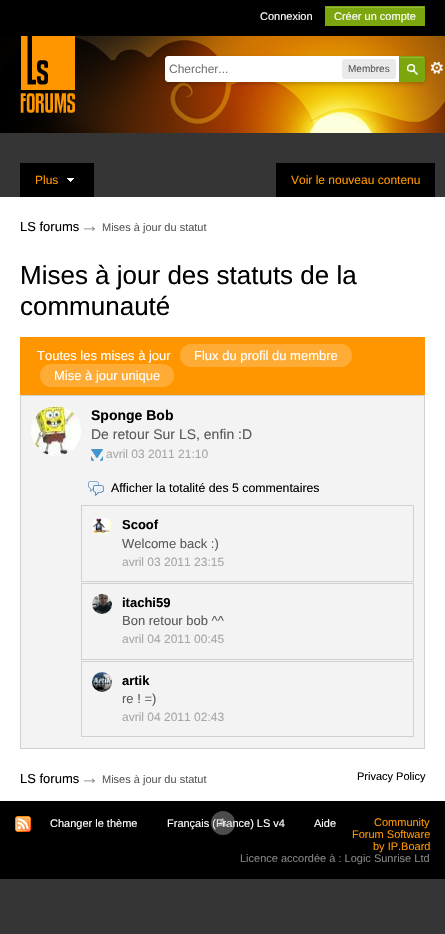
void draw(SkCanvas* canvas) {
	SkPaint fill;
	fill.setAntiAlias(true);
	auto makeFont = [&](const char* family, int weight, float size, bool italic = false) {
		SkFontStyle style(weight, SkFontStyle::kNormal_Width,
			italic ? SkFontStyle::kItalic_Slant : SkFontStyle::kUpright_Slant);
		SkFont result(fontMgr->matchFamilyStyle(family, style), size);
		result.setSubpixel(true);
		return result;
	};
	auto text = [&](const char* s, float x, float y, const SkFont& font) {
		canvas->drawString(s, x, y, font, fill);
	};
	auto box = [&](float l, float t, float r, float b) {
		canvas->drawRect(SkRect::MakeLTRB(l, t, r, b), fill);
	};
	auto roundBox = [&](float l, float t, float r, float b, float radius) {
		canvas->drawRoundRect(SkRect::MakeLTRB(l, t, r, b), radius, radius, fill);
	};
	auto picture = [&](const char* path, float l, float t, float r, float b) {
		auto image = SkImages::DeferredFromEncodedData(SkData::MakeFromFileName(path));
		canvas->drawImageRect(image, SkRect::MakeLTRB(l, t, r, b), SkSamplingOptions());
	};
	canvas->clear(0xFF353535);
	fill.setColor(0xFF000000);
	box(0, 0, 445, 36);
	fill.setColor(0xFF7BA60D);
	box(325, 6, 425, 26);
	fill.setColor(0xFF95B83D);
	box(326, 7, 424, 8);
	picture("image0.png", 0, 36, 445, 133);
	picture("image1.png", 20, 36, 75, 113);
	picture("image3.png", 431, 62, 443, 74);
	fill.setColor(0x33000000);
	fill.setMaskFilter(SkMaskFilter::MakeBlur(kNormal_SkBlurStyle, 2));
	canvas->drawRoundRect(SkRect::MakeLTRB(165, 58, 425, 84), 4, 4, fill);
	fill.setMaskFilter(nullptr);
	fill.setColor(0xFFFFFFFF);
	canvas->drawPath(SkPathBuilder().moveTo(168, 56).lineTo(421, 56).cubicTo(423, 56, 425, 58, 425, 60).lineTo(425, 78).cubicTo(425, 80, 423, 82, 421, 82).lineTo(168, 82).cubicTo(166.5f, 82, 165, 80.5f, 165, 79).lineTo(165, 59).cubicTo(165, 57.5f, 166.5f, 56, 168, 56).close().detach(), fill);
	fill.setColor(0xFFEAEAEA);
	roundBox(342, 59, 396, 79, 3);
	fill.setColor(0xFF7BA60D);
	canvas->drawPath(SkPathBuilder().moveTo(399, 56).lineTo(422, 56).cubicTo(423.5f, 56, 425, 57.5f, 425, 59).lineTo(425, 79).cubicTo(425, 80.5f, 423.5f, 82, 422, 82).lineTo(399, 82).close().detach(), fill);
	picture("image2.png", 407, 64, 418, 75);
	fill.setColor(0xFF95B83D);
	canvas->drawPath(SkPathBuilder().moveTo(400, 58).lineTo(422, 58).cubicTo(423, 58, 424, 59, 424, 60).lineTo(424, 59).cubicTo(424, 58, 423, 57, 422, 57).lineTo(400, 57).close().detach(), fill);
	fill.setStyle(SkPaint::kStroke_Style);
	fill.setStrokeWidth(1);
	fill.setColor(0xFF7BA60D);
	canvas->drawPath(SkPathBuilder().moveTo(399.5f, 56.5f).lineTo(422, 56.5f).cubicTo(423.5f, 56.5f, 424.5f, 57.5f, 424.5f, 59).lineTo(424.5f, 79).cubicTo(424.5f, 80.5f, 423.5f, 81.5f, 422, 81.5f).lineTo(399.5f, 81.5f).close().detach(), fill);
	fill.setStyle(SkPaint::kFill_Style);
	fill.setColor(0xFF000000);
	box(20, 163, 94, 197);
	picture("image4.png", 67, 178, 74, 182);
	box(276, 163, 435, 197);
	fill.setColor(0xFFFFFFFF);
	box(0, 197, 445, 801);
	fill.setColor(0xFFFF9600);
	box(20, 337, 425, 395);
	fill.setColor(0xFFFFAC36);
	roundBox(180, 344, 352, 367, 11.5f);
	roundBox(40, 364, 174, 387, 11.5f);
	fill.setColor(0xFFF3F3F3);
	canvas->drawRect(SkRect::MakeLTRB(20.5f, 395.5f, 424.5f, 748.5f), fill);
	fill.setStyle(SkPaint::kStroke_Style);
	fill.setColor(0xFFD0D0D0);
	canvas->drawRect(SkRect::MakeLTRB(20.5f, 395.5f, 424.5f, 748.5f), fill);
	fill.setStyle(SkPaint::kFill_Style);
	fill.setColor(0xFFFFFFFF);
	canvas->drawCircle(56, 431, 25, fill);
	picture("image5.png", 31, 406, 79, 456);
	picture("image6.png", 91, 449, 103, 461);
	picture("image7.png", 88, 481, 104, 496);
	fill.setStyle(SkPaint::kStroke_Style);
	fill.setColor(0xFFD0D0D0);
	canvas->drawRect(SkRect::MakeLTRB(81.5f, 505.5f, 413.5f, 581.5f), fill);
	fill.setStyle(SkPaint::kFill_Style);
	fill.setColor(0xFFFFFFFF);
	canvas->drawCircle(102, 526, 10, fill);
	picture("image8.png", 92, 516, 112, 536);
	fill.setStyle(SkPaint::kStroke_Style);
	fill.setColor(0xFFD0D0D0);
	canvas->drawRect(SkRect::MakeLTRB(81.5f, 583.5f, 413.5f, 659.5f), fill);
	fill.setStyle(SkPaint::kFill_Style);
	fill.setColor(0xFFFFFFFF);
	canvas->drawCircle(102, 604, 10, fill);
	picture("image9.png", 92, 594, 112, 614);
	fill.setStyle(SkPaint::kStroke_Style);
	fill.setColor(0xFFD0D0D0);
	canvas->drawRect(SkRect::MakeLTRB(81.5f, 661.5f, 413.5f, 736.5f), fill);
	fill.setStyle(SkPaint::kFill_Style);
	fill.setColor(0xFFFFFFFF);
	canvas->drawCircle(102, 682, 10, fill);
	picture("image10.png", 92, 672, 112, 692);
	fill.setColor(0xFF000000);
	box(0, 801, 445, 879);
	picture("image12.png", 15, 816, 31, 832);
	auto font1 = makeFont("Liberation Sans", 400, 11);
	fill.setColor(0xFFFFFFFF);
	text("Connexion", 260, 20, font1);
	text("Créer un compte", 334, 20, font1);
	auto font2 = makeFont("Liberation Sans", 400, 12);
	fill.setColor(0xFF757575);
	text("Chercher...", 169, 73, font2);
	auto font3 = makeFont("Liberation Sans", 400, 10);
	fill.setColor(0xFF5A5A5A);
	text("Membres", 348, 72, font3);
	fill.setColor(0xFFFF9600);
	text("Plus", 35, 184, font2);
	text("Voir le nouveau contenu", 291, 184, font2);
	auto font4 = makeFont("Liberation Sans", 400, 13);
	fill.setColor(0xFF000000);
	text("LS forums", 20, 231, font4);
	auto font5 = makeFont("Liberation Sans", 400, 19);
	fill.setColor(0xFF8C8C8C);
	text("→", 80, 232, font5);
	fill.setColor(0xFF5A5A5A);
	text("Mises à jour du statut", 102, 231, font1);
	auto font6 = makeFont("Liberation Sans", 400, 26);
	fill.setColor(0xFF000000);
	text("Mises à jour des statuts de la", 20, 284, font6);
	text("communauté", 20, 315, font6);
	fill.setColor(0xFFFFFFFF);
	text("Toutes les mises à jour", 37, 360, font4);
	text("Flux du profil du membre", 194, 360, font4);
	text("Mise à jour unique", 54, 380, font4);
	auto font7 = makeFont("Liberation Sans", 700, 14);
	fill.setColor(0xFF000000);
	text("Sponge Bob", 91, 420, font7);
	auto font8 = makeFont("Liberation Sans", 400, 14);
	fill.setColor(0xFF5A5A5A);
	text("De retour Sur LS, enfin :D", 91, 439, font8);
	fill.setColor(0xFFA7A7A7);
	text("avril 03 2011 21:10", 106, 458, font2);
	auto font9 = makeFont("Liberation Sans", 400, 12.3f);
	fill.setColor(0xFF000000);
	text("Afficher la totalité des 5 commentaires", 111, 492, font9);
	auto font10 = makeFont("Liberation Sans", 700, 13);
	text("Scoof", 122, 529, font10);
	fill.setColor(0xFF5A5A5A);
	text("Welcome back :)", 122, 548, font4);
	fill.setColor(0xFFA7A7A7);
	text("avril 03 2011 23:15", 122, 566, font2);
	fill.setColor(0xFF000000);
	text("itachi59", 122, 607, font10);
	fill.setColor(0xFF5A5A5A);
	text("Bon retour bob ^^", 122, 625, font4);
	fill.setColor(0xFFA7A7A7);
	text("avril 04 2011 00:45", 122, 643, font2);
	fill.setColor(0xFF000000);
	text("artik", 122, 685, font10);
	fill.setColor(0xFF5A5A5A);
	text("re ! =)", 122, 703, font4);
	fill.setColor(0xFFA7A7A7);
	text("avril 04 2011 02:43", 122, 721, font2);
	fill.setColor(0xFF000000);
	text("LS forums", 20, 783, font4);
	fill.setColor(0xFF8C8C8C);
	text("→", 80, 784, font5);
	fill.setColor(0xFF5A5A5A);
	text("Mises à jour du statut", 102, 783, font1);
	fill.setColor(0xFF000000);
	text("Privacy Policy", 357, 780, font1);
	fill.setColor(0xFFFFFFFF);
	text("Changer le thème", 50, 827, font1);
	text("Français (France) LS v4", 167, 827, font1);
	fill.setColor(0x66BDBDBD);
	canvas->drawCircle(223, 823, 12, fill);
	picture("image11.png", 218, 818, 228, 827);
	fill.setColor(0xFFFFFFFF);
	text("Aide", 314, 827, font1);
	fill.setColor(0xFFFF9600);
	text("Community", 374, 826, font1);
	text("Forum Software", 352, 838, font1);
	text("by IP.Board", 373, 850, font1);
	fill.setColor(0xFF848484);
	text("Licence accordée à : Logic Sunrise Ltd", 240, 862, font1);
}
